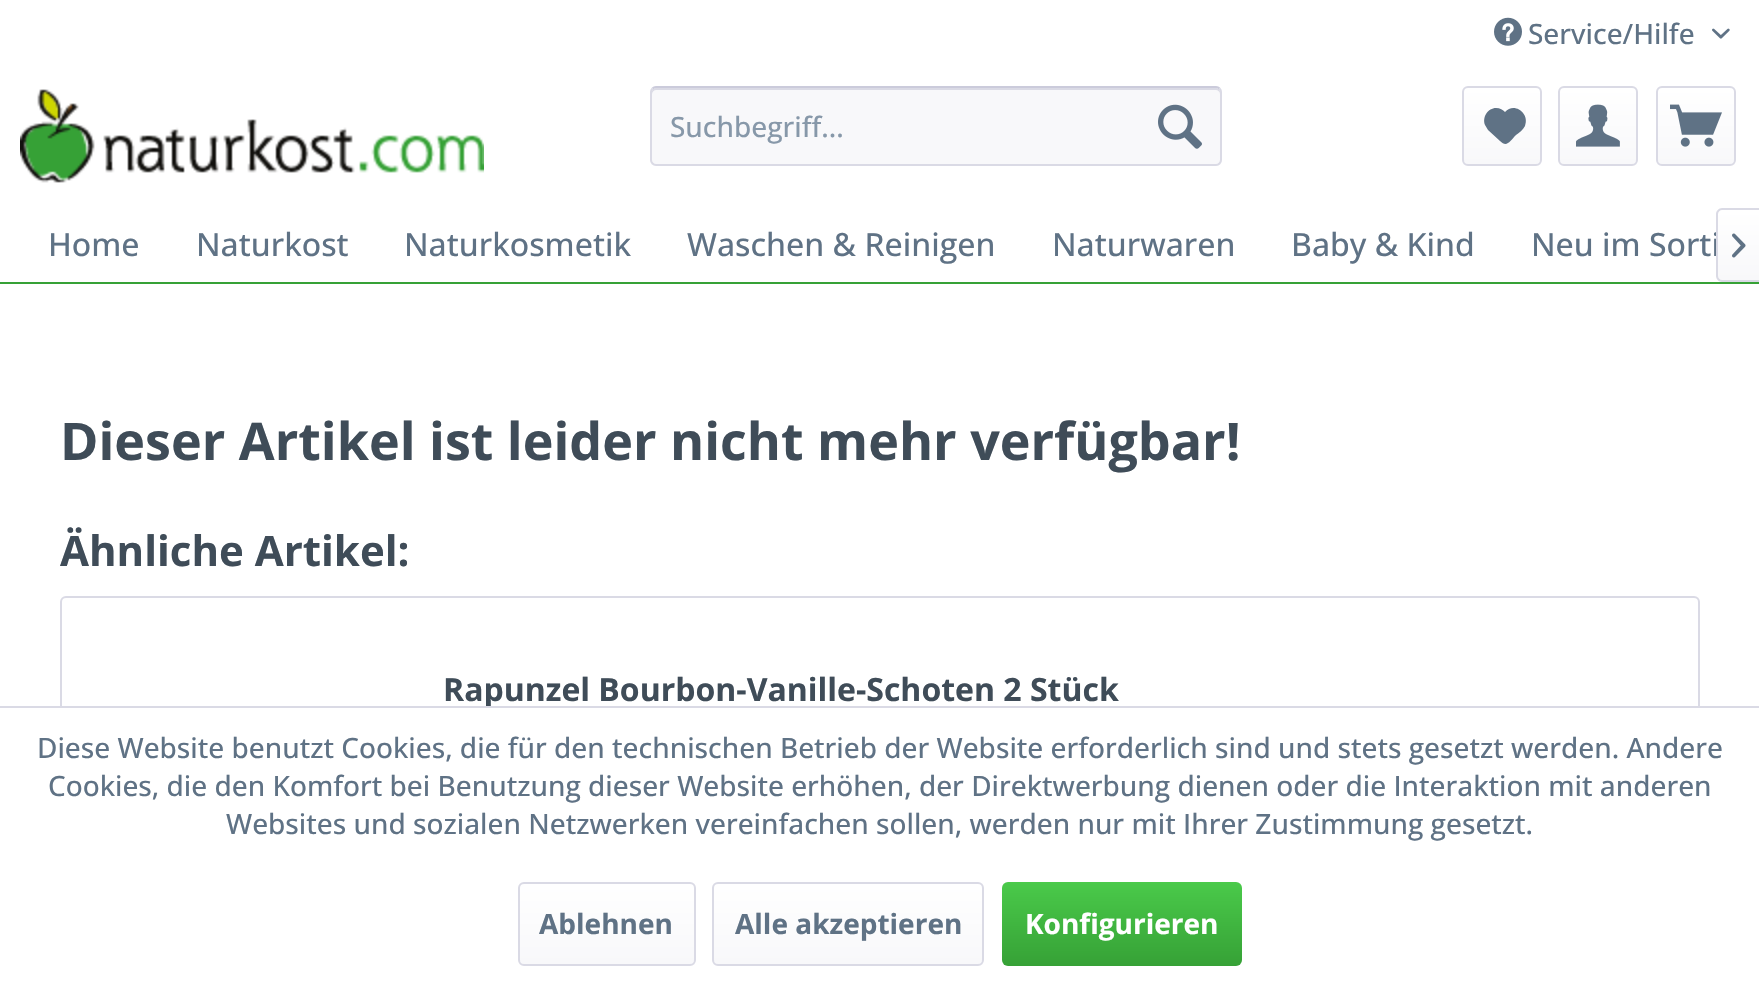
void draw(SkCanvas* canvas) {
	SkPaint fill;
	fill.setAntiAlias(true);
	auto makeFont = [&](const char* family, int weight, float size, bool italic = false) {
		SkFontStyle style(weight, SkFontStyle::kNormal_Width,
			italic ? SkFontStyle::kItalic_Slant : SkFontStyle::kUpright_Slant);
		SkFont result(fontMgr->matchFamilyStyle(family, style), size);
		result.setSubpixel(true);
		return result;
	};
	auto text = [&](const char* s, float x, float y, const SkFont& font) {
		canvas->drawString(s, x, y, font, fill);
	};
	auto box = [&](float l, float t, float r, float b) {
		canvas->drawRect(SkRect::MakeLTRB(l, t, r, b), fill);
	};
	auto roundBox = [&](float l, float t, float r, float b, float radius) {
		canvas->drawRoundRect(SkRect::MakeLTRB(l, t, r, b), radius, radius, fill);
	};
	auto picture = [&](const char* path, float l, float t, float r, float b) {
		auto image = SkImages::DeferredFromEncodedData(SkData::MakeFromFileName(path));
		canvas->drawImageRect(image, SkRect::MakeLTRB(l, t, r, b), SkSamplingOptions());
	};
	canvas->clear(0xFFFFFFFF);
	picture("image0.png", 1494, 17, 1522, 46);
	picture("image1.png", 1712, 28, 1730, 39);
	picture("image2.png", 20, 89, 484, 183);
	fill.setColor(0xFFF8F8FA);
	roundBox(650, 86, 1222, 166, 6);
	fill.setColor(0xFFDADAE5);
	canvas->drawPath(SkPathBuilder().moveTo(656, 90).lineTo(1216, 90).cubicTo(1218, 90, 1220, 92, 1220, 94).cubicTo(1220, 91, 1220, 88, 1216, 88).lineTo(656, 88).cubicTo(652, 88, 652, 91, 652, 94).cubicTo(652, 92, 654, 90, 656, 90).close().detach(), fill);
	fill.setStyle(SkPaint::kStroke_Style);
	fill.setStrokeWidth(2);
	fill.setColor(0xFFCBCBDB);
	canvas->drawPath(SkPathBuilder().moveTo(652.5f, 88.5f).cubicTo(653.5f, 87.5f, 654.5f, 87, 656, 87).lineTo(1216, 87).cubicTo(1217.5f, 87, 1218.5f, 87.5f, 1219.5f, 88.5f).detach(), fill);
	fill.setColor(0xFFDADAE5);
	canvas->drawPath(SkPathBuilder().moveTo(1219.5f, 88.5f).cubicTo(1220.5f, 89.5f, 1221, 90.5f, 1221, 92).lineTo(1221, 160).cubicTo(1221, 161.5f, 1220.5f, 162.5f, 1219.5f, 163.5f).cubicTo(1218.5f, 164.5f, 1217.5f, 165, 1216, 165).lineTo(656, 165).cubicTo(654.5f, 165, 653.5f, 164.5f, 652.5f, 163.5f).cubicTo(651.5f, 162.5f, 651, 161.5f, 651, 160).lineTo(651, 92).cubicTo(651, 90.5f, 651.5f, 89.5f, 652.5f, 88.5f).detach(), fill);
	picture("image3.png", 1158, 104, 1202, 149);
	fill.setStyle(SkPaint::kFill_Style);
	{
		const SkColor colors[] = {0xFFFFFFFF, 0xFFF8F8FA};
		const float stops[] = {0, 1};
		const SkPoint ends[] = {{1502, 88}, {1502, 164}};
		fill.setShader(SkGradientShader::MakeLinear(ends, colors, stops, 2, SkTileMode::kClamp));
		fill.setAlpha(255);
	}
	roundBox(1464, 88, 1540, 164, 4);
	fill.setStyle(SkPaint::kStroke_Style);
	fill.setShader(nullptr);
	fill.setColor(0xFFDADAE5);
	canvas->drawRoundRect(SkRect::MakeLTRB(1463, 87, 1541, 165), 5, 5, fill);
	fill.setStyle(SkPaint::kFill_Style);
	fill.setColor(0xFF5F7285);
	canvas->drawPath(SkPathBuilder().moveTo(1496, 108).cubicTo(1488, 108, 1482, 117, 1485, 125).lineTo(1488, 130).lineTo(1500, 141).cubicTo(1507, 148, 1510, 141, 1516, 135).cubicTo(1519, 133, 1523, 130, 1525, 126).cubicTo(1530, 113, 1514, 102, 1505, 112).cubicTo(1503, 110, 1500, 108, 1496, 108).close().detach(), fill);
	{
		const SkColor colors[] = {0xFFFFFFFF, 0xFFF8F8FA};
		const float stops[] = {0, 1};
		const SkPoint ends[] = {{1598, 88}, {1598, 164}};
		fill.setShader(SkGradientShader::MakeLinear(ends, colors, stops, 2, SkTileMode::kClamp));
		fill.setAlpha(255);
	}
	roundBox(1560, 88, 1636, 164, 4);
	fill.setStyle(SkPaint::kStroke_Style);
	fill.setShader(nullptr);
	fill.setColor(0xFFDADAE5);
	canvas->drawRoundRect(SkRect::MakeLTRB(1559, 87, 1637, 165), 5, 5, fill);
	picture("image4.png", 1576, 104, 1620, 147);
	fill.setStyle(SkPaint::kFill_Style);
	{
		const SkColor colors[] = {0xFFFFFFFF, 0xFFF8F8FA};
		const float stops[] = {0, 1};
		const SkPoint ends[] = {{1696, 88}, {1696, 164}};
		fill.setShader(SkGradientShader::MakeLinear(ends, colors, stops, 2, SkTileMode::kClamp));
		fill.setAlpha(255);
	}
	roundBox(1658, 88, 1734, 164, 4);
	fill.setStyle(SkPaint::kStroke_Style);
	fill.setShader(nullptr);
	fill.setColor(0xFFDADAE5);
	canvas->drawRoundRect(SkRect::MakeLTRB(1657, 87, 1735, 165), 5, 5, fill);
	picture("image5.png", 1670, 104, 1722, 147);
	fill.setStyle(SkPaint::kFill_Style);
	fill.setColor(0xFF36A136);
	box(0, 282, 1759, 284);
	{
		const SkColor colors[] = {0xFFFFFFFF, 0xFFF8F8FA};
		const float stops[] = {0, 1};
		const SkPoint ends[] = {{1739, 210}, {1739, 280}};
		fill.setShader(SkGradientShader::MakeLinear(ends, colors, stops, 2, SkTileMode::kClamp));
		fill.setAlpha(255);
	}
	canvas->drawPath(SkPathBuilder().moveTo(1722, 210).lineTo(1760, 210).lineTo(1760, 280).lineTo(1722, 280).cubicTo(1720, 280, 1718, 278, 1718, 276).lineTo(1718, 214).cubicTo(1718, 212, 1720, 210, 1722, 210).close().detach(), fill);
	fill.setStyle(SkPaint::kStroke_Style);
	fill.setShader(nullptr);
	fill.setColor(0xFFDADAE5);
	canvas->drawRoundRect(SkRect::MakeLTRB(61, 597, 1699, 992), 5, 5, fill);
	auto font1 = makeFont("Open Sans", 500, 28);
	fill.setStyle(SkPaint::kFill_Style);
	fill.setColor(0xFF5F7285);
	text("Service/Hilfe", 1528, 44, font1);
	fill.setColor(0xFF8798A9);
	text("Suchbegriff...", 670, 137, font1);
	auto font2 = makeFont("Open Sans", 500, 32);
	fill.setColor(0xFF5F7285);
	text("Home", 48, 256, font2);
	text("Naturkost", 196, 256, font2);
	text("Naturkosmetik", 404, 256, font2);
	text("Waschen & Reinigen", 687, 256, font2);
	text("Naturwaren", 1052, 256, font2);
	text("Baby & Kind", 1291, 256, font2);
	text("Neu im Sorti", 1531, 256, font2);
	fill.setColor(0xFFDADAE5);
	canvas->drawPath(SkPathBuilder(SkPathFillType::kEvenOdd).moveTo(1722, 208).lineTo(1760, 208).lineTo(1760, 282).lineTo(1722, 282).cubicTo(1719, 282, 1716, 279, 1716, 276).lineTo(1716, 214).cubicTo(1716, 211, 1719, 208, 1722, 208).close().moveTo(1722, 210).lineTo(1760, 210).lineTo(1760, 280).lineTo(1722, 280).cubicTo(1720, 280, 1718, 278, 1718, 276).lineTo(1718, 214).cubicTo(1718, 212, 1720, 210, 1722, 210).close().detach(), fill);
	picture("image6.png", 1732, 233, 1746, 258);
	auto font3 = makeFont("Open Sans", 700, 52);
	fill.setColor(0xFF3F4C58);
	text("Dieser Artikel ist leider nicht mehr verfügbar!", 60, 460, font3);
	auto font4 = makeFont("Open Sans", 700, 42);
	text("Ähnliche Artikel:", 60, 566, font4);
	auto font5 = makeFont("Open Sans", 700, 32);
	text("Rapunzel Bourbon-Vanille-Schoten 2 Stück", 443, 701, font5);
	fill.setColor(0xFFFFFFFF);
	box(60, 708, 1700, 985);
	fill.setColor(0xFFDADAE5);
	box(0, 706, 1759, 708);
	fill.setColor(0xFF5F7285);
	text("Diese Website benutzt Cookies, die für den technischen Betrieb der Website erforderlich sind und stets gesetzt werden. Andere", 37, 758, font1);
	text("Cookies, die den Komfort bei Benutzung dieser Website erhöhen, der Direktwerbung dienen oder die Interaktion mit anderen", 48, 796, font1);
	text("Websites und sozialen Netzwerken vereinfachen sollen, werden nur mit Ihrer Zustimmung gesetzt.", 226, 834, font1);
	{
		const SkColor colors[] = {0xFFFFFFFF, 0xFFF8F8FA};
		const float stops[] = {0, 1};
		const SkPoint ends[] = {{607, 884}, {607, 964}};
		fill.setShader(SkGradientShader::MakeLinear(ends, colors, stops, 2, SkTileMode::kClamp));
		fill.setAlpha(255);
	}
	roundBox(520, 884, 694, 964, 4);
	fill.setStyle(SkPaint::kStroke_Style);
	fill.setShader(nullptr);
	fill.setColor(0xFFDADAE5);
	canvas->drawRoundRect(SkRect::MakeLTRB(519, 883, 695, 965), 5, 5, fill);
	auto font6 = makeFont("Open Sans", 700, 28);
	fill.setStyle(SkPaint::kFill_Style);
	fill.setColor(0xFF5F7285);
	text("Ablehnen", 539, 934, font6);
	{
		const SkColor colors[] = {0xFFFFFFFF, 0xFFF8F8FA};
		const float stops[] = {0, 1};
		const SkPoint ends[] = {{848, 884}, {848, 964}};
		fill.setShader(SkGradientShader::MakeLinear(ends, colors, stops, 2, SkTileMode::kClamp));
		fill.setAlpha(255);
	}
	roundBox(714, 884, 982, 964, 4);
	fill.setStyle(SkPaint::kStroke_Style);
	fill.setShader(nullptr);
	fill.setColor(0xFFDADAE5);
	canvas->drawRoundRect(SkRect::MakeLTRB(713, 883, 983, 965), 5, 5, fill);
	fill.setStyle(SkPaint::kFill_Style);
	fill.setColor(0xFF5F7285);
	text("Alle akzeptieren", 735, 934, font6);
	{
		const SkColor colors[] = {0xFF4ACA4A, 0xFF36A136};
		const float stops[] = {0, 1};
		const SkPoint ends[] = {{1122, 882}, {1122, 966}};
		fill.setShader(SkGradientShader::MakeLinear(ends, colors, stops, 2, SkTileMode::kClamp));
		fill.setAlpha(255);
	}
	roundBox(1002, 882, 1242, 966, 6);
	fill.setShader(nullptr);
	fill.setColor(0xFFFFFFFF);
	text("Konfigurieren", 1025, 934, font6);
}
